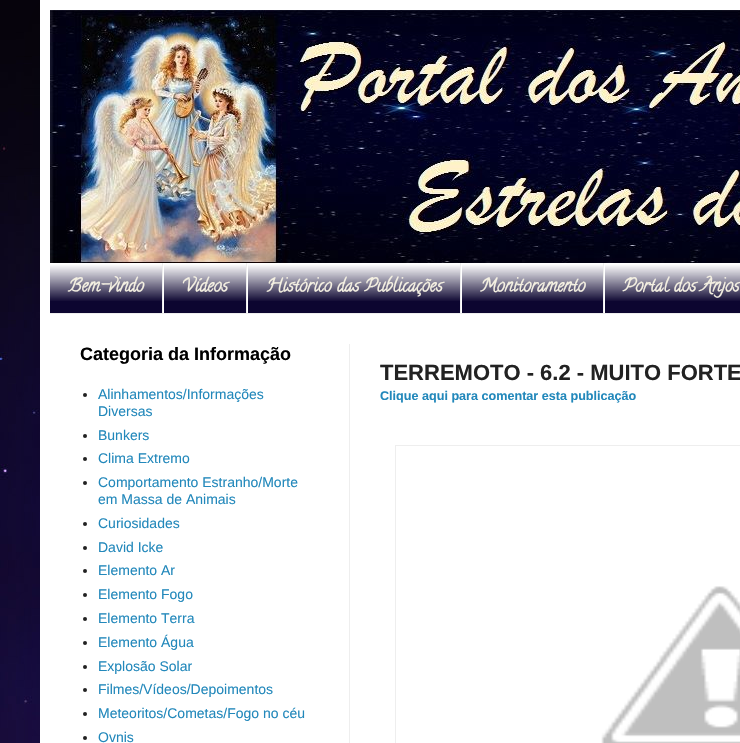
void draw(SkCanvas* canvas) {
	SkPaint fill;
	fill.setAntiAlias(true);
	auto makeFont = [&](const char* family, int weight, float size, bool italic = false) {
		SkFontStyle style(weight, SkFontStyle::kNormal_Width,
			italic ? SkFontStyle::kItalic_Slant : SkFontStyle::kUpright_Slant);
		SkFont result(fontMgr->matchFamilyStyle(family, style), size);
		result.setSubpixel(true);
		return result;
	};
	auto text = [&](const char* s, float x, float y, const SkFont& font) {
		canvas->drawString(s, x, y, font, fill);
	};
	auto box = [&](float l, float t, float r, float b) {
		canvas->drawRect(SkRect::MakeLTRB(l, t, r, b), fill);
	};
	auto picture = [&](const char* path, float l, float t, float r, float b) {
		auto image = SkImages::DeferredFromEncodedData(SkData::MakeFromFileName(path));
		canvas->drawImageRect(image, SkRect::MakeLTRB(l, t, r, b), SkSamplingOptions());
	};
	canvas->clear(0xFFFFFFFF);
	picture("image0.png", 0, 400, 40, 743);
	picture("image1.png", 0, 0, 40, 400);
	fill.setColor(0x26000000);
	fill.setMaskFilter(SkMaskFilter::MakeBlur(kNormal_SkBlurStyle, 20));
	canvas->drawRect(SkRect::MakeLTRB(40, 0, 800, 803), fill);
	fill.setMaskFilter(nullptr);
	fill.setColor(0xFFFFFFFF);
	box(40, 0, 740, 743);
	picture("image2.png", 50, 10, 740, 263);
	fill.setColor(0xFF0C0530);
	box(50, 264, 740, 313);
	picture("image3.png", 50, 263, 740, 301);
	fill.setColor(0xFFEEEEEE);
	box(50, 313, 740, 314);
	box(162, 263, 163, 313);
	box(246, 263, 247, 313);
	fill.setColor(0xFFFFFFFF);
	box(163, 263, 164, 313);
	fill.setColor(0xFFEEEEEE);
	box(460, 263, 461, 313);
	fill.setColor(0xFFFFFFFF);
	box(247, 263, 248, 313);
	fill.setColor(0xFFEEEEEE);
	box(603, 263, 604, 313);
	fill.setColor(0xFFFFFFFF);
	box(461, 263, 462, 313);
	box(604, 263, 605, 313);
	fill.setColor(0xFFEEEEEE);
	box(349, 344, 350, 743);
	fill.setColor(0xFF222222);
	canvas->drawCircle(85, 395, 2, fill);
	canvas->drawCircle(85, 436, 2, fill);
	canvas->drawCircle(85, 459, 2, fill);
	canvas->drawCircle(85, 483, 2, fill);
	canvas->drawCircle(85, 524, 2, fill);
	canvas->drawCircle(85, 548, 2, fill);
	canvas->drawCircle(85, 571, 2, fill);
	canvas->drawCircle(85, 595, 2, fill);
	canvas->drawCircle(85, 619, 2, fill);
	canvas->drawCircle(85, 643, 2, fill);
	canvas->drawCircle(85, 667, 2, fill);
	canvas->drawCircle(85, 690, 2, fill);
	canvas->drawCircle(85, 714, 2, fill);
	canvas->drawCircle(85, 738, 2, fill);
	fill.setStyle(SkPaint::kStroke_Style);
	fill.setStrokeWidth(1);
	fill.setColor(0xFFEEEEEE);
	canvas->drawRect(SkRect::MakeLTRB(395.5f, 445.5f, 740.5f, 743.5f), fill);
	picture("image4.png", 601, 586, 740, 743);
	auto font1 = makeFont("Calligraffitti", 700, 18);
	fill.setStyle(SkPaint::kFill_Style);
	fill.setColor(0xFFF4F0E2);
	text("Bem-vindo", 68, 291, font1);
	text("Vídeos", 182, 291, font1);
	text("Histórico das Publicações", 266, 291, font1);
	text("Monitoramento", 480, 291, font1);
	text("Portal dos Anjos", 623, 291, font1);
	auto font2 = makeFont("Liberation Sans", 700, 18);
	fill.setColor(0xFF000000);
	text("Categoria da Informação", 80, 360, font2);
	auto font3 = makeFont("Liberation Sans", 400, 14);
	fill.setColor(0xFF2288BB);
	text("Alinhamentos/Informações", 98, 399, font3);
	text("Diversas", 98, 416, font3);
	text("Bunkers", 98, 440, font3);
	text("Clima Extremo", 98, 463, font3);
	text("Comportamento Estranho/Morte", 98, 487, font3);
	text("em Massa de Animais", 98, 504, font3);
	text("Curiosidades", 98, 528, font3);
	text("David Icke", 98, 552, font3);
	text("Elemento Ar", 98, 575, font3);
	text("Elemento Fogo", 98, 599, font3);
	text("Elemento Terra", 98, 623, font3);
	text("Elemento Água", 98, 647, font3);
	text("Explosão Solar", 98, 671, font3);
	text("Filmes/Vídeos/Depoimentos", 98, 694, font3);
	text("Meteoritos/Cometas/Fogo no céu", 98, 718, font3);
	text("Ovnis", 98, 742, font3);
	auto font4 = makeFont("Liberation Sans", 700, 22);
	fill.setColor(0xFF222222);
	text("TERREMOTO - 6.2 - MUITO FORTE", 380, 380, font4);
	auto font5 = makeFont("Liberation Sans", 700, 12.6f);
	fill.setColor(0xFF2288BB);
	text("Clique aqui para comentar esta publicação", 380, 400, font5);
}
